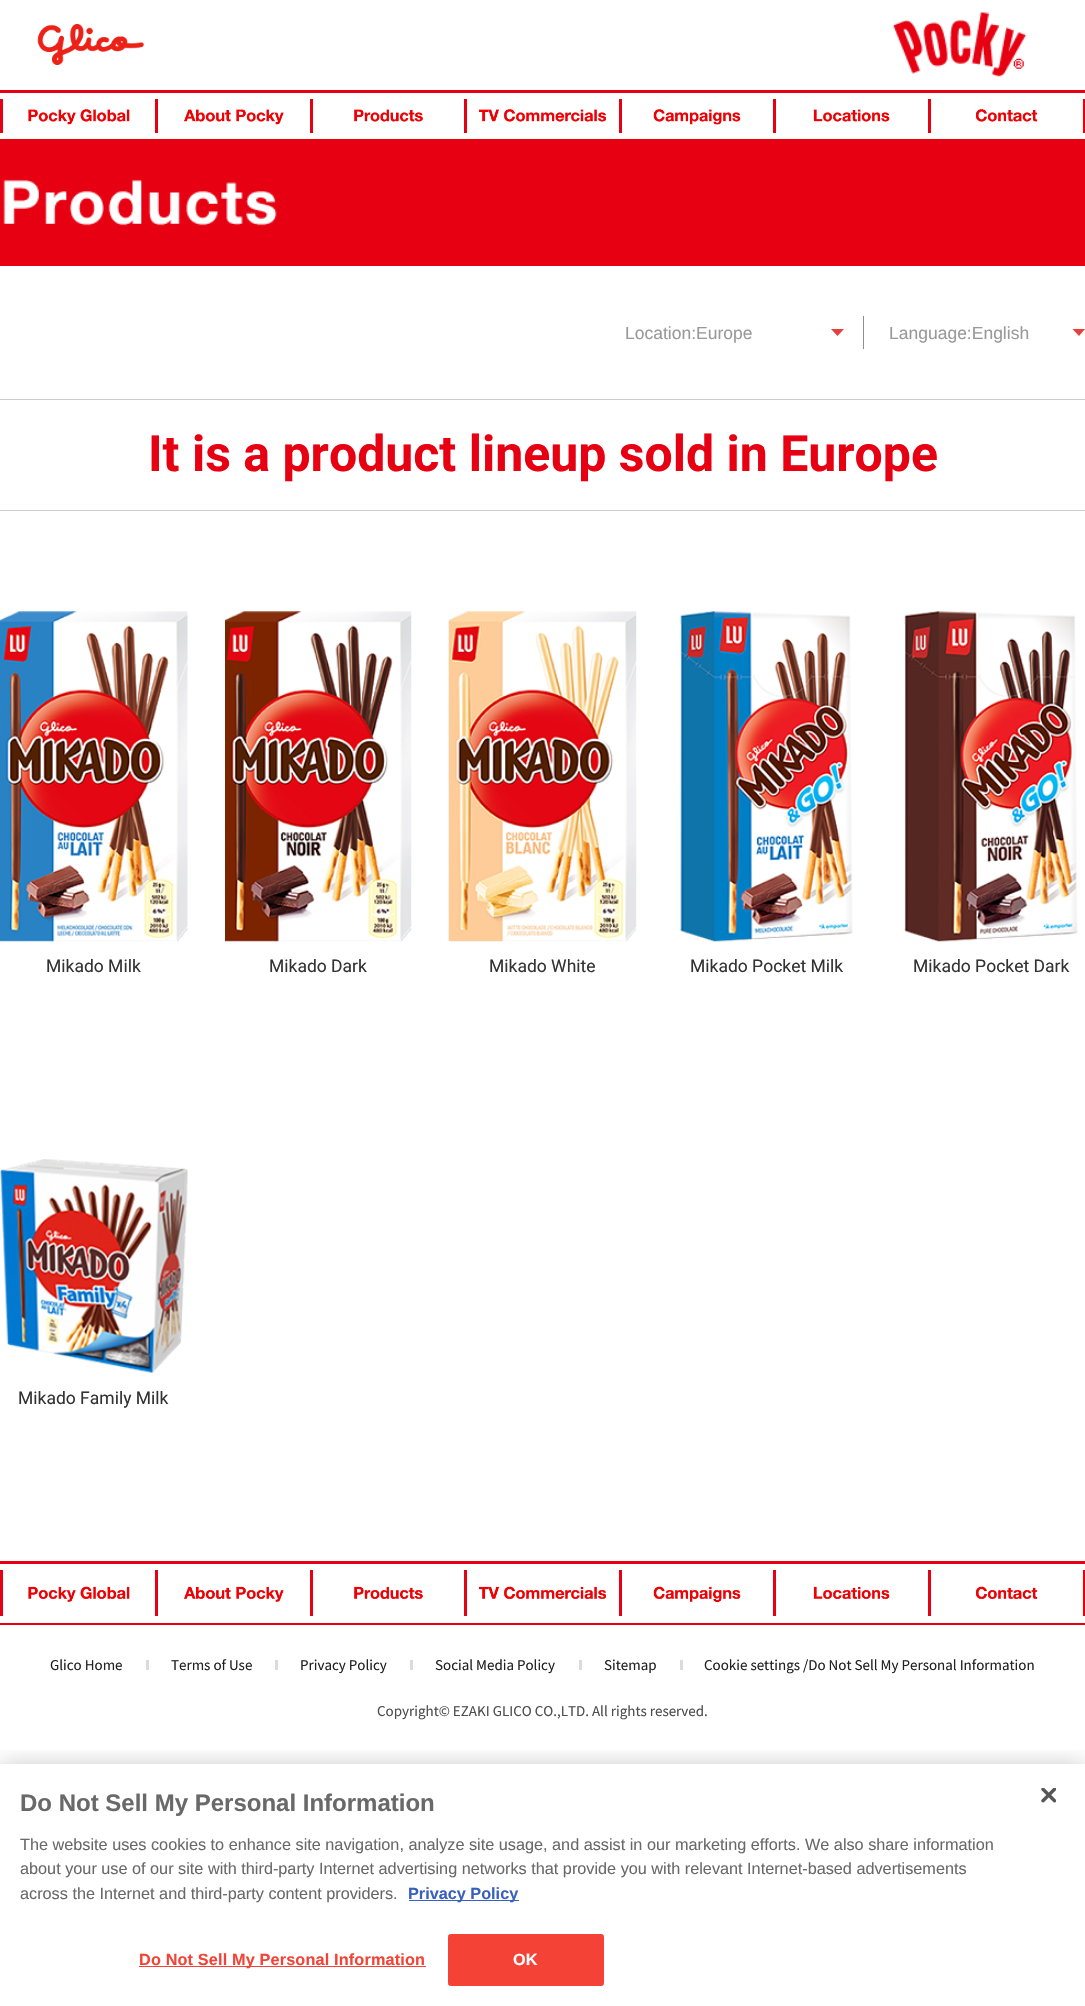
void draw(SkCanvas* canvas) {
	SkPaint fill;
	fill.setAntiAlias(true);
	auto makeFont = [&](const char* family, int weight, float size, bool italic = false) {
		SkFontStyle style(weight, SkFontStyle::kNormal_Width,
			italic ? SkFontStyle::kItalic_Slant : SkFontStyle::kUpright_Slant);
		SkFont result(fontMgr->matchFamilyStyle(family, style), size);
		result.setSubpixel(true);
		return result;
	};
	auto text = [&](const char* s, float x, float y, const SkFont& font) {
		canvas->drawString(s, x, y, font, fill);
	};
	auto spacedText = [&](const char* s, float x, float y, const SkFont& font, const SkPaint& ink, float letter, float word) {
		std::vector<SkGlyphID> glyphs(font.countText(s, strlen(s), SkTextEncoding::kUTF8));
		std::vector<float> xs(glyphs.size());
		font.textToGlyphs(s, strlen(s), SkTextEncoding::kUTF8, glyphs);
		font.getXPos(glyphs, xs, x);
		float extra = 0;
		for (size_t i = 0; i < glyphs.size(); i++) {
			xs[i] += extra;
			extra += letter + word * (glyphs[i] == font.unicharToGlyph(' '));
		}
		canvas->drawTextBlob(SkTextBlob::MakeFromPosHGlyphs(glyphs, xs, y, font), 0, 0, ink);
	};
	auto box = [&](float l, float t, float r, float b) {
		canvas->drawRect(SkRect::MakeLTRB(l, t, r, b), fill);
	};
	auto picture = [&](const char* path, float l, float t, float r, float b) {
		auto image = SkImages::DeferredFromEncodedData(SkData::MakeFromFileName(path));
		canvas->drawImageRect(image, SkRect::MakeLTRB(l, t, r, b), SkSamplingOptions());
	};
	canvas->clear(0xFFFFFFFF);
	picture("image0.png", 37, 24, 144, 65);
	picture("image1.png", 893, 12, 1027, 77);
	fill.setColor(0xFFE60012);
	box(0, 90, 1085, 93);
	box(0, 139, 1085, 266);
	box(0, 99, 3, 133);
	box(155, 99, 158, 133);
	picture("image2.png", 28, 109, 130, 125);
	box(310, 99, 313, 133);
	picture("image3.png", 184, 109, 284, 125);
	box(464, 99, 467, 133);
	picture("image4.png", 354, 109, 423, 122);
	box(619, 99, 622, 133);
	picture("image5.png", 479, 109, 606, 122);
	box(773, 99, 776, 133);
	picture("image6.png", 653, 109, 741, 125);
	box(928, 99, 931, 133);
	picture("image7.png", 813, 109, 890, 122);
	box(1083, 99, 1085, 133);
	picture("image8.png", 976, 109, 1038, 122);
	picture("image9.png", 3, 179, 277, 226);
	fill.setColor(0xFF8F8F8F);
	box(863, 316, 864, 349);
	fill.setColor(0xFFE5403D);
	canvas->drawPath(SkPathBuilder().moveTo(831, 329).lineTo(844, 329).lineTo(837.5f, 336).close().detach(), fill);
	canvas->drawPath(SkPathBuilder().moveTo(1072.5f, 329).lineTo(1085, 329).lineTo(1079, 336).close().detach(), fill);
	fill.setColor(0xFFCCCCCC);
	box(0, 399, 1085, 400);
	box(0, 510, 1085, 511);
	picture("image10.png", 0, 611, 188, 942);
	picture("image11.png", 225, 611, 412, 942);
	picture("image12.png", 448, 611, 637, 942);
	picture("image13.png", 680, 611, 853, 942);
	picture("image14.png", 904, 611, 1078, 942);
	picture("image15.png", 0, 1159, 188, 1373);
	fill.setColor(0xFFE60012);
	box(0, 1561, 1085, 1564);
	box(0, 1623, 1085, 1625);
	box(0, 1570, 3, 1616);
	box(155, 1570, 158, 1616);
	picture("image16.png", 28, 1586, 130, 1602);
	box(310, 1570, 313, 1616);
	picture("image17.png", 183, 1586, 284, 1602);
	box(464, 1570, 467, 1616);
	picture("image18.png", 354, 1586, 423, 1599);
	box(619, 1570, 622, 1616);
	picture("image19.png", 479, 1586, 606, 1599);
	box(773, 1570, 776, 1616);
	picture("image20.png", 653, 1586, 741, 1603);
	box(928, 1570, 931, 1616);
	picture("image21.png", 813, 1586, 890, 1599);
	box(1083, 1570, 1085, 1616);
	picture("image22.png", 976, 1586, 1038, 1599);
	fill.setColor(0xFFDBDBDB);
	box(146, 1660, 149, 1670);
	box(275, 1660, 278, 1670);
	box(410, 1660, 413, 1670);
	box(579, 1660, 582, 1670);
	box(680, 1660, 683, 1670);
	canvas->save();
	canvas->clipRect(SkRect::MakeLTRB(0, 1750, 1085, 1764));
	fill.setColor(0x33000000);
	fill.setMaskFilter(SkMaskFilter::MakeBlur(kNormal_SkBlurStyle, 11));
	canvas->drawRect(SkRect::MakeLTRB(0, 1764, 1085, 2006), fill);
	fill.setMaskFilter(nullptr);
	canvas->restore();
	fill.setColor(0xFF3860BE);
	box(409, 1900, 519, 1901);
	picture("image23.png", 1041, 1788, 1056, 1803);
	fill.setColor(0xFFF44336);
	box(139, 1966, 426, 1967);
	canvas->drawRoundRect(SkRect::MakeLTRB(448.5f, 1934.5f, 603.5f, 1985.5f), 2, 2, fill);
	fill.setStyle(SkPaint::kStroke_Style);
	fill.setStrokeWidth(1);
	canvas->drawRoundRect(SkRect::MakeLTRB(448.5f, 1934.5f, 603.5f, 1985.5f), 2, 2, fill);
	auto font1 = makeFont("Liberation Sans", 400, 17.5f);
	fill.setStyle(SkPaint::kFill_Style);
	fill.setColor(0xFF999999);
	text("Location:Europe", 625, 339, font1);
	text("Language:English", 889, 339, font1);
	auto font2 = makeFont("Roboto", 700, 50);
	fill.setColor(0xFFE60012);
	text("It is a product lineup sold in Europe", 148, 471, font2);
	auto font3 = makeFont("Roboto", 400, 17.5f);
	fill.setColor(0xFF333333);
	text("Mikado Milk", 46, 972, font3);
	text("Mikado Dark", 269, 972, font3);
	text("Mikado White", 489, 972, font3);
	text("Mikado Pocket Milk", 690, 972, font3);
	text("Mikado Pocket Dark", 913, 972, font3);
	text("Mikado Family Milk", 18, 1404, font3);
	auto font4 = makeFont("Source Sans Pro", 400, 15);
	fill.setColor(0xFF212121);
	text("Glico Home", 50, 1670, font4);
	text("Terms of Use", 171, 1670, font4);
	text("Privacy Policy", 300, 1670, font4);
	text("Social Media Policy", 435, 1670, font4);
	text("Sitemap", 604, 1670, font4);
	text("Cookie settings /Do Not Sell My Personal Information", 704, 1670, font4);
	fill.setColor(0xFF4D4D4D);
	text("Copyright© EZAKI GLICO CO.,LTD. All rights reserved.", 377, 1716, font4);
	auto font5 = makeFont("Liberation Sans", 700, 24);
	fill.setColor(0xFF696969);
	text("Do Not Sell My Personal Information", 20, 1811, font5);
	auto font6 = makeFont("Liberation Sans", 400, 16.25f);
	text("The website uses cookies to enhance site navigation, analyze site usage, and assist in our marketing efforts. We also share information", 20, 1850, font6);
	text("about your use of our site with third-party Internet advertising networks that provide you with relevant Internet-based advertisements", 20, 1874, font6);
	text("across the Internet and third-party content providers.", 20, 1899, font6);
	auto font7 = makeFont("Liberation Sans", 700, 16.25f);
	fill.setColor(0xFF3860BE);
	text("Privacy Policy", 408, 1899, font7);
	fill.setColor(0xFFF44336);
	spacedText("Do Not Sell My Personal Information", 139, 1965, font7, fill, 0.15f, 0);
	fill.setColor(0xFFFFFFFF);
	spacedText("OK", 513, 1965, font7, fill, 0.15f, 0);
}
